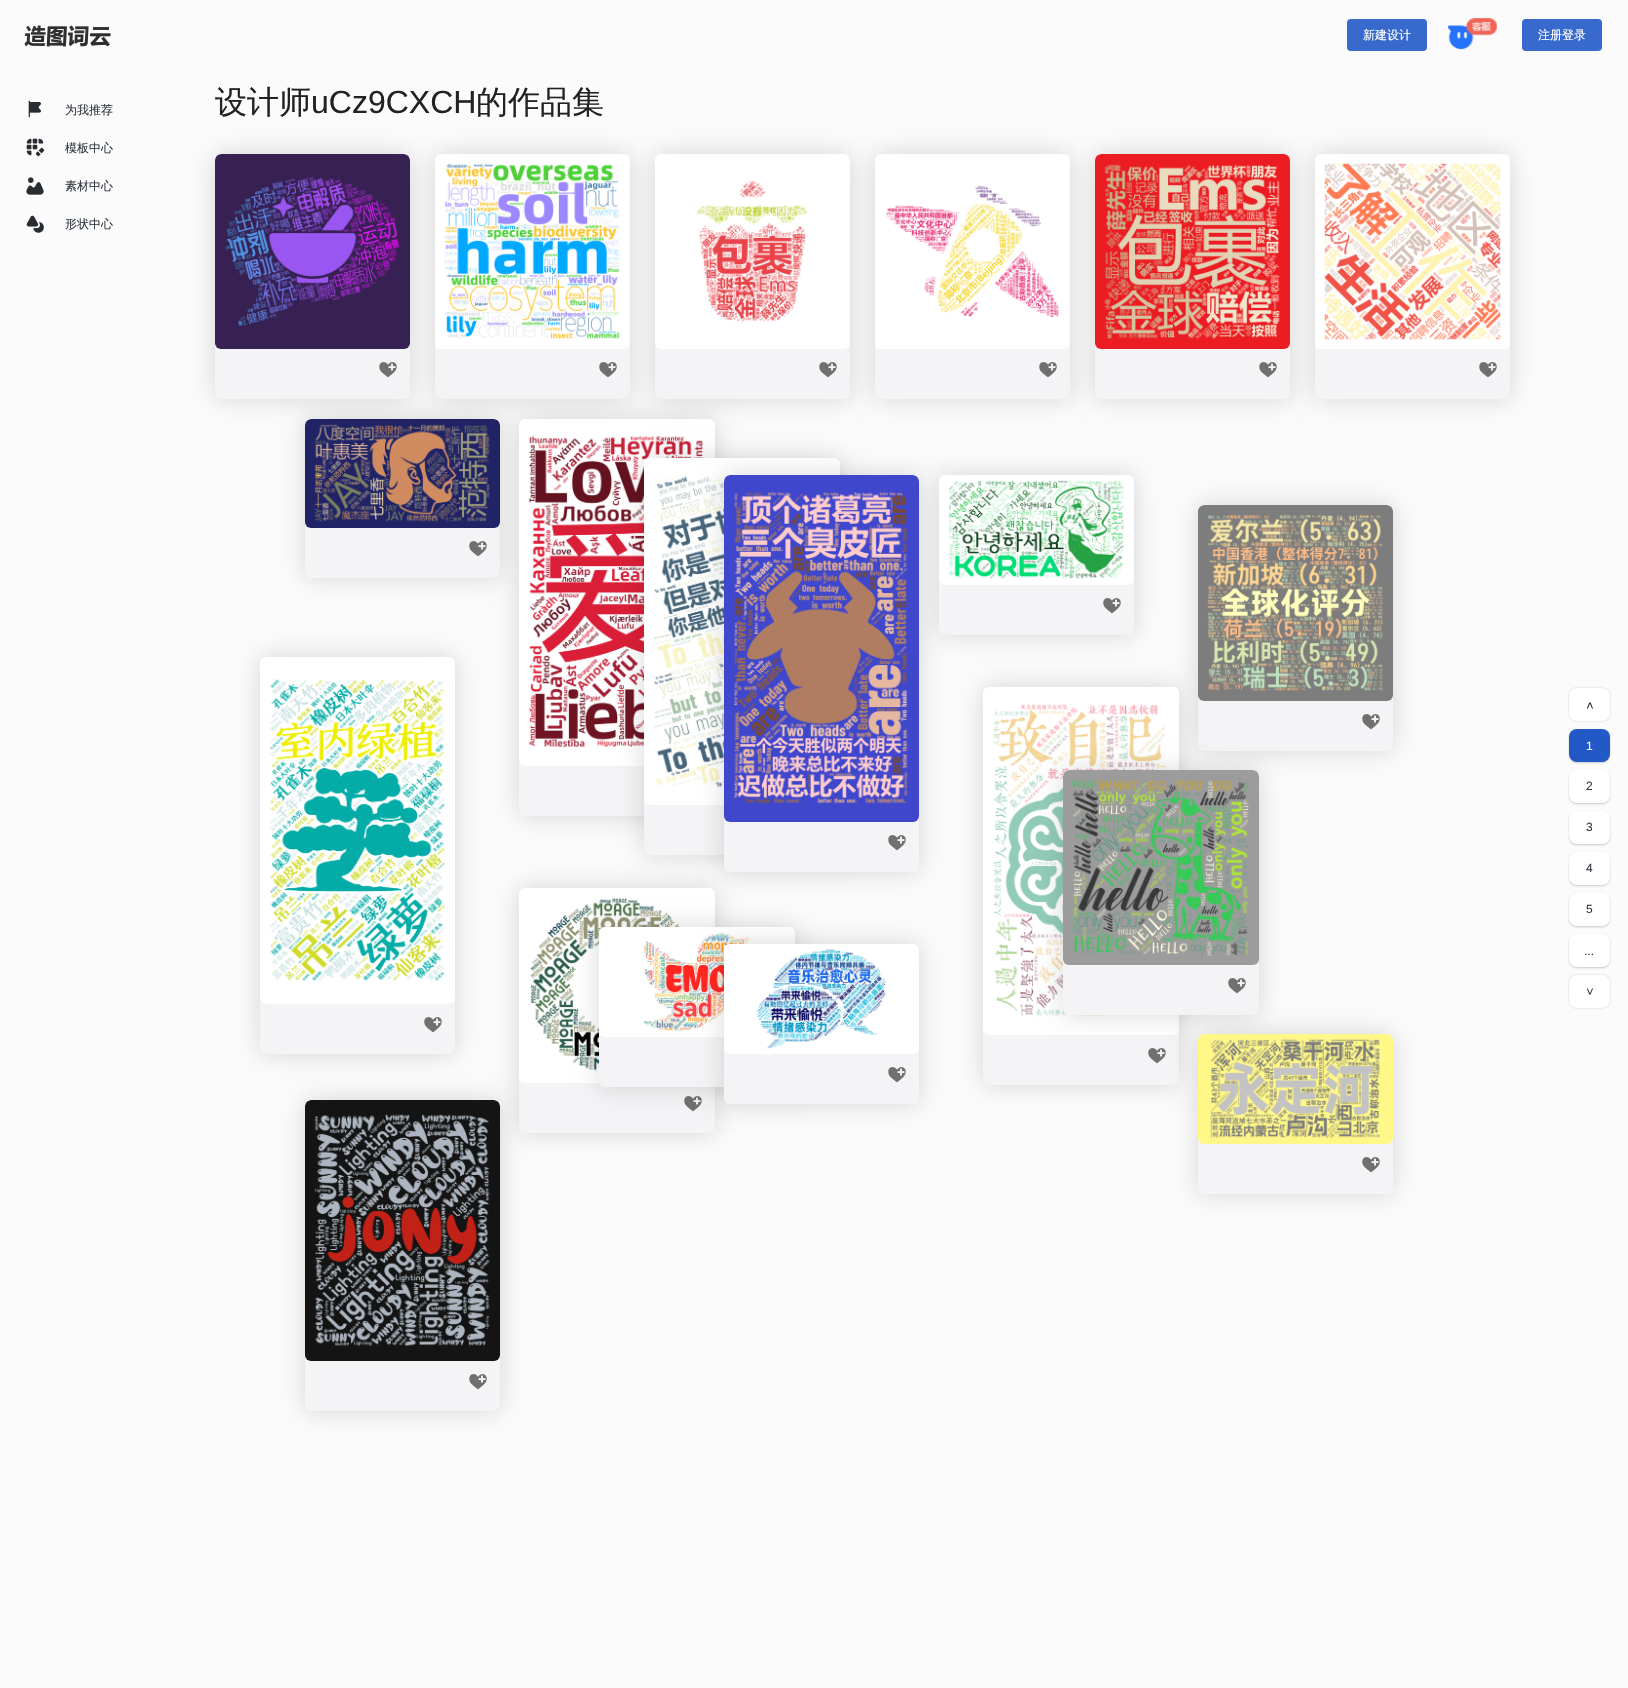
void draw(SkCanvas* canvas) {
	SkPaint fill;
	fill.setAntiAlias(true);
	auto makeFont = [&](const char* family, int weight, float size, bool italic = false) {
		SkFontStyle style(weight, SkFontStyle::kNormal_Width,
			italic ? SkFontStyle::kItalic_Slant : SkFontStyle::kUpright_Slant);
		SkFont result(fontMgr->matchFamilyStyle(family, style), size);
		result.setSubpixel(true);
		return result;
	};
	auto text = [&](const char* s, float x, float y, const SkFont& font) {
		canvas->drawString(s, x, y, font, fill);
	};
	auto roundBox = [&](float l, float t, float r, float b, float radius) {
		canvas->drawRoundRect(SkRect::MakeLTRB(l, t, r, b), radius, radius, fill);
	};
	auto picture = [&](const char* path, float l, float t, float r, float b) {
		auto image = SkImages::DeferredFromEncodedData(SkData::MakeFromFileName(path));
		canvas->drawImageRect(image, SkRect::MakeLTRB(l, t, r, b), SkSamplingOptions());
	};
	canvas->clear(0xFFFBFBFB);
	picture("image0.png", 24, 25, 111, 47);
	fill.setColor(0xFF3869CC);
	roundBox(1347, 19, 1427, 51, 4);
	picture("image1.png", 1447, 17, 1497, 50);
	roundBox(1522, 19, 1602, 51, 4);
	picture("image2.png", 28, 100, 41, 118);
	picture("image3.png", 26, 138, 45, 157);
	picture("image4.png", 26, 177, 44, 195);
	picture("image5.png", 26, 215, 44, 233);
	fill.setColor(0x26000000);
	fill.setMaskFilter(SkMaskFilter::MakeBlur(kNormal_SkBlurStyle, 12.5f));
	canvas->drawRoundRect(SkRect::MakeLTRB(215, 154, 410, 399), 6, 6, fill);
	fill.setMaskFilter(nullptr);
	fill.setColor(0xFFF4F4F6);
	roundBox(215, 154, 410, 399, 6);
	fill.setColor(0xFFFFFFFF);
	roundBox(215, 154, 410, 349, 6);
	picture("image6.png", 215, 154, 410, 349);
	picture("image7.png", 379, 362, 397, 378);
	fill.setColor(0x26000000);
	fill.setMaskFilter(SkMaskFilter::MakeBlur(kNormal_SkBlurStyle, 12.5f));
	canvas->drawRoundRect(SkRect::MakeLTRB(435, 154, 630, 399), 6, 6, fill);
	fill.setMaskFilter(nullptr);
	fill.setColor(0xFFF4F4F6);
	roundBox(435, 154, 630, 399, 6);
	fill.setColor(0xFFFFFFFF);
	roundBox(435, 154, 630, 349, 6);
	picture("image8.png", 444, 163, 620, 339);
	picture("image7.png", 599, 362, 617, 378);
	fill.setColor(0x26000000);
	fill.setMaskFilter(SkMaskFilter::MakeBlur(kNormal_SkBlurStyle, 12.5f));
	canvas->drawRoundRect(SkRect::MakeLTRB(655, 154, 850, 399), 6, 6, fill);
	fill.setMaskFilter(nullptr);
	fill.setColor(0xFFF4F4F6);
	roundBox(655, 154, 850, 399, 6);
	fill.setColor(0xFFFFFFFF);
	roundBox(655, 154, 850, 349, 6);
	picture("image9.png", 696, 181, 808, 322);
	picture("image7.png", 819, 362, 837, 378);
	fill.setColor(0x26000000);
	fill.setMaskFilter(SkMaskFilter::MakeBlur(kNormal_SkBlurStyle, 12.5f));
	canvas->drawRoundRect(SkRect::MakeLTRB(875, 154, 1070, 399), 6, 6, fill);
	fill.setMaskFilter(nullptr);
	fill.setColor(0xFFF4F4F6);
	roundBox(875, 154, 1070, 399, 6);
	fill.setColor(0xFFFFFFFF);
	roundBox(875, 154, 1070, 349, 6);
	picture("image10.png", 886, 185, 1059, 318);
	picture("image7.png", 1039, 362, 1057, 378);
	fill.setColor(0x26000000);
	fill.setMaskFilter(SkMaskFilter::MakeBlur(kNormal_SkBlurStyle, 12.5f));
	canvas->drawRoundRect(SkRect::MakeLTRB(1095, 154, 1290, 399), 6, 6, fill);
	fill.setMaskFilter(nullptr);
	fill.setColor(0xFFF4F4F6);
	roundBox(1095, 154, 1290, 399, 6);
	fill.setColor(0xFFFFFFFF);
	roundBox(1095, 154, 1290, 349, 6);
	picture("image11.png", 1095, 154, 1290, 349);
	picture("image7.png", 1259, 362, 1277, 378);
	fill.setColor(0x26000000);
	fill.setMaskFilter(SkMaskFilter::MakeBlur(kNormal_SkBlurStyle, 12.5f));
	canvas->drawRoundRect(SkRect::MakeLTRB(1315, 154, 1510, 399), 6, 6, fill);
	fill.setMaskFilter(nullptr);
	fill.setColor(0xFFF4F4F6);
	roundBox(1315, 154, 1510, 399, 6);
	fill.setColor(0xFFFFFFFF);
	roundBox(1315, 154, 1510, 349, 6);
	picture("image12.png", 1324, 163, 1501, 340);
	picture("image7.png", 1479, 362, 1497, 378);
	fill.setColor(0x26000000);
	fill.setMaskFilter(SkMaskFilter::MakeBlur(kNormal_SkBlurStyle, 12.5f));
	canvas->drawRoundRect(SkRect::MakeLTRB(305, 419, 500, 578), 6, 6, fill);
	fill.setMaskFilter(nullptr);
	fill.setColor(0xFFF4F4F6);
	roundBox(305, 419, 500, 578, 6);
	fill.setColor(0xFFFFFFFF);
	roundBox(305, 419, 500, 528, 6);
	picture("image13.png", 305, 419, 500, 528);
	picture("image7.png", 469, 541, 487, 557);
	fill.setColor(0x26000000);
	fill.setMaskFilter(SkMaskFilter::MakeBlur(kNormal_SkBlurStyle, 12.5f));
	canvas->drawRoundRect(SkRect::MakeLTRB(519, 419, 715, 816), 6, 6, fill);
	fill.setMaskFilter(nullptr);
	fill.setColor(0xFFF4F4F6);
	roundBox(519, 419, 715, 816, 6);
	fill.setColor(0xFFFFFFFF);
	roundBox(519, 419, 715, 766, 6);
	picture("image14.png", 528, 435, 704, 748);
	fill.setColor(0x26000000);
	fill.setMaskFilter(SkMaskFilter::MakeBlur(kNormal_SkBlurStyle, 12.5f));
	canvas->drawRoundRect(SkRect::MakeLTRB(644, 458, 840, 855), 6, 6, fill);
	fill.setMaskFilter(nullptr);
	fill.setColor(0xFFF4F4F6);
	roundBox(644, 458, 840, 855, 6);
	fill.setColor(0xFFFFFFFF);
	roundBox(644, 458, 840, 805, 6);
	picture("image15.png", 653, 475, 730, 788);
	fill.setColor(0x26000000);
	fill.setMaskFilter(SkMaskFilter::MakeBlur(kNormal_SkBlurStyle, 12.5f));
	canvas->drawRoundRect(SkRect::MakeLTRB(260, 657, 455, 1054), 6, 6, fill);
	fill.setMaskFilter(nullptr);
	fill.setColor(0xFFF4F4F6);
	roundBox(260, 657, 455, 1054, 6);
	fill.setColor(0xFFFFFFFF);
	roundBox(260, 657, 455, 1004, 6);
	picture("image16.png", 269, 679, 446, 981);
	picture("image7.png", 424, 1017, 442, 1033);
	fill.setColor(0x26000000);
	fill.setMaskFilter(SkMaskFilter::MakeBlur(kNormal_SkBlurStyle, 12.5f));
	canvas->drawRoundRect(SkRect::MakeLTRB(724, 475, 919, 872), 6, 6, fill);
	fill.setMaskFilter(nullptr);
	fill.setColor(0xFFF4F4F6);
	roundBox(724, 475, 919, 872, 6);
	fill.setColor(0xFFFFFFFF);
	roundBox(724, 475, 919, 822, 6);
	picture("image17.png", 724, 475, 919, 822);
	picture("image7.png", 888, 835, 906, 851);
	fill.setColor(0x26000000);
	fill.setMaskFilter(SkMaskFilter::MakeBlur(kNormal_SkBlurStyle, 12.5f));
	canvas->drawRoundRect(SkRect::MakeLTRB(939, 475, 1134, 635), 6, 6, fill);
	fill.setMaskFilter(nullptr);
	fill.setColor(0xFFF4F4F6);
	roundBox(939, 475, 1134, 635, 6);
	fill.setColor(0xFFFFFFFF);
	roundBox(939, 475, 1134, 585, 6);
	picture("image18.png", 948, 480, 1124, 579);
	picture("image7.png", 1103, 598, 1121, 614);
	fill.setColor(0x26000000);
	fill.setMaskFilter(SkMaskFilter::MakeBlur(kNormal_SkBlurStyle, 12.5f));
	canvas->drawRoundRect(SkRect::MakeLTRB(1198, 505, 1393, 751), 6, 6, fill);
	fill.setMaskFilter(nullptr);
	fill.setColor(0xFFF4F4F6);
	roundBox(1198, 505, 1393, 751, 6);
	fill.setColor(0xFFFFFFFF);
	roundBox(1198, 505, 1393, 701, 6);
	picture("image19.png", 1198, 505, 1393, 701);
	picture("image7.png", 1362, 714, 1380, 730);
	fill.setColor(0x26000000);
	fill.setMaskFilter(SkMaskFilter::MakeBlur(kNormal_SkBlurStyle, 12.5f));
	canvas->drawRoundRect(SkRect::MakeLTRB(983, 687, 1179, 1085), 6, 6, fill);
	fill.setMaskFilter(nullptr);
	fill.setColor(0xFFF4F4F6);
	roundBox(983, 687, 1179, 1085, 6);
	fill.setColor(0xFFFFFFFF);
	roundBox(983, 687, 1179, 1035, 6);
	picture("image20.png", 993, 704, 1167, 1017);
	picture("image7.png", 1148, 1048, 1166, 1064);
	fill.setColor(0x26000000);
	fill.setMaskFilter(SkMaskFilter::MakeBlur(kNormal_SkBlurStyle, 12.5f));
	canvas->drawRoundRect(SkRect::MakeLTRB(519, 888, 715, 1133), 6, 6, fill);
	fill.setMaskFilter(nullptr);
	fill.setColor(0xFFF4F4F6);
	roundBox(519, 888, 715, 1133, 6);
	fill.setColor(0xFFFFFFFF);
	roundBox(519, 888, 715, 1083, 6);
	picture("image21.png", 530, 898, 705, 1074);
	picture("image7.png", 684, 1096, 702, 1112);
	fill.setColor(0x26000000);
	fill.setMaskFilter(SkMaskFilter::MakeBlur(kNormal_SkBlurStyle, 12.5f));
	canvas->drawRoundRect(SkRect::MakeLTRB(1063, 770, 1259, 1015), 6, 6, fill);
	fill.setMaskFilter(nullptr);
	fill.setColor(0xFFF4F4F6);
	roundBox(1063, 770, 1259, 1015, 6);
	fill.setColor(0xFFFFFFFF);
	roundBox(1063, 770, 1259, 965, 6);
	picture("image22.png", 1063, 770, 1259, 965);
	picture("image7.png", 1228, 978, 1246, 994);
	fill.setColor(0x26000000);
	fill.setMaskFilter(SkMaskFilter::MakeBlur(kNormal_SkBlurStyle, 12.5f));
	canvas->drawRoundRect(SkRect::MakeLTRB(599, 927, 795, 1087), 6, 6, fill);
	fill.setMaskFilter(nullptr);
	fill.setColor(0xFFF4F4F6);
	roundBox(599, 927, 795, 1087, 6);
	fill.setColor(0xFFFFFFFF);
	roundBox(599, 927, 795, 1037, 6);
	picture("image23.png", 602, 927, 752, 1032);
	fill.setColor(0x26000000);
	fill.setMaskFilter(SkMaskFilter::MakeBlur(kNormal_SkBlurStyle, 12.5f));
	canvas->drawRoundRect(SkRect::MakeLTRB(305, 1100, 500, 1411), 6, 6, fill);
	fill.setMaskFilter(nullptr);
	fill.setColor(0xFFF4F4F6);
	roundBox(305, 1100, 500, 1411, 6);
	fill.setColor(0xFFFFFFFF);
	roundBox(305, 1100, 500, 1361, 6);
	picture("image24.png", 305, 1100, 500, 1361);
	picture("image7.png", 469, 1374, 487, 1390);
	fill.setColor(0x26000000);
	fill.setMaskFilter(SkMaskFilter::MakeBlur(kNormal_SkBlurStyle, 12.5f));
	canvas->drawRoundRect(SkRect::MakeLTRB(724, 944, 919, 1104), 6, 6, fill);
	fill.setMaskFilter(nullptr);
	fill.setColor(0xFFF4F4F6);
	roundBox(724, 944, 919, 1104, 6);
	fill.setColor(0xFFFFFFFF);
	roundBox(724, 944, 919, 1054, 6);
	picture("image25.png", 724, 944, 886, 1049);
	picture("image7.png", 888, 1067, 906, 1083);
	fill.setColor(0x26000000);
	fill.setMaskFilter(SkMaskFilter::MakeBlur(kNormal_SkBlurStyle, 12.5f));
	canvas->drawRoundRect(SkRect::MakeLTRB(1198, 1034, 1393, 1194), 6, 6, fill);
	fill.setMaskFilter(nullptr);
	fill.setColor(0xFFF4F4F6);
	roundBox(1198, 1034, 1393, 1194, 6);
	fill.setColor(0xFFFFFFFF);
	roundBox(1198, 1034, 1393, 1144, 6);
	picture("image26.png", 1198, 1034, 1393, 1144);
	picture("image7.png", 1362, 1157, 1380, 1173);
	fill.setColor(0x33000000);
	fill.setMaskFilter(SkMaskFilter::MakeBlur(kNormal_SkBlurStyle, 1));
	canvas->drawRoundRect(SkRect::MakeLTRB(1569, 688, 1610, 721), 8, 8, fill);
	fill.setMaskFilter(nullptr);
	fill.setColor(0xFFFFFFFF);
	roundBox(1569, 688, 1610, 721, 8);
	fill.setColor(0x33000000);
	fill.setMaskFilter(SkMaskFilter::MakeBlur(kNormal_SkBlurStyle, 1));
	canvas->drawRoundRect(SkRect::MakeLTRB(1569, 730, 1610, 763), 8, 8, fill);
	fill.setMaskFilter(nullptr);
	fill.setColor(0xFF2259C7);
	roundBox(1569, 729, 1610, 762, 8);
	fill.setColor(0x33000000);
	fill.setMaskFilter(SkMaskFilter::MakeBlur(kNormal_SkBlurStyle, 1));
	canvas->drawRoundRect(SkRect::MakeLTRB(1569, 771, 1610, 804), 8, 8, fill);
	fill.setMaskFilter(nullptr);
	fill.setColor(0xFFFFFFFF);
	roundBox(1569, 770, 1610, 803, 8);
	fill.setColor(0x33000000);
	fill.setMaskFilter(SkMaskFilter::MakeBlur(kNormal_SkBlurStyle, 1));
	canvas->drawRoundRect(SkRect::MakeLTRB(1569, 812, 1610, 845), 8, 8, fill);
	fill.setMaskFilter(nullptr);
	fill.setColor(0xFFFFFFFF);
	roundBox(1569, 811, 1610, 844, 8);
	fill.setColor(0x33000000);
	fill.setMaskFilter(SkMaskFilter::MakeBlur(kNormal_SkBlurStyle, 1));
	canvas->drawRoundRect(SkRect::MakeLTRB(1569, 853, 1610, 886), 8, 8, fill);
	fill.setMaskFilter(nullptr);
	fill.setColor(0xFFFFFFFF);
	roundBox(1569, 852, 1610, 885, 8);
	fill.setColor(0x33000000);
	fill.setMaskFilter(SkMaskFilter::MakeBlur(kNormal_SkBlurStyle, 1));
	canvas->drawRoundRect(SkRect::MakeLTRB(1569, 894, 1610, 927), 8, 8, fill);
	fill.setMaskFilter(nullptr);
	fill.setColor(0xFFFFFFFF);
	roundBox(1569, 893, 1610, 926, 8);
	fill.setColor(0x33000000);
	fill.setMaskFilter(SkMaskFilter::MakeBlur(kNormal_SkBlurStyle, 1));
	canvas->drawRoundRect(SkRect::MakeLTRB(1569, 935, 1610, 968), 8, 8, fill);
	fill.setMaskFilter(nullptr);
	fill.setColor(0xFFFFFFFF);
	roundBox(1569, 934, 1610, 967, 8);
	fill.setColor(0x33000000);
	fill.setMaskFilter(SkMaskFilter::MakeBlur(kNormal_SkBlurStyle, 1));
	canvas->drawRoundRect(SkRect::MakeLTRB(1569, 975, 1610, 1008), 8, 8, fill);
	fill.setMaskFilter(nullptr);
	fill.setColor(0xFFFFFFFF);
	roundBox(1569, 975, 1610, 1008, 8);
	auto font1 = makeFont("WenQuanYi Zen Hei", 500, 12);
	text("新建设计", 1363, 39, font1);
	text("注册登录", 1538, 39, font1);
	fill.setColor(0xFF323941);
	text("为我推荐", 65, 114, font1);
	text("模板中心", 65, 152, font1);
	text("素材中心", 65, 190, font1);
	text("形状中心", 65, 228, font1);
	auto font2 = makeFont("WenQuanYi Zen Hei", 500, 32);
	fill.setColor(0xFF222222);
	text("设计师", 215, 113, font2);
	auto font3 = makeFont("Liberation Sans", 400, 32);
	text("uCz9CXCH", 311, 113, font3);
	text("的作品集", 476, 113, font2);
	auto font4 = makeFont("Liberation Sans", 400, 12);
	canvas->save();
	canvas->rotate(90, 1586, 702);
	text("<", 1586, 702, font4);
	canvas->restore();
	fill.setColor(0xFFFFFFFF);
	text("1", 1586, 750, font4);
	fill.setColor(0xFF323941);
	text("2", 1586, 790, font4);
	text("3", 1586, 831, font4);
	text("4", 1586, 872, font4);
	text("5", 1586, 913, font4);
	fill.setColor(0xFF222222);
	text("...", 1584, 955, font4);
	fill.setColor(0xFF323941);
	canvas->save();
	canvas->rotate(90, 1586, 988);
	text(">", 1586, 988, font4);
	canvas->restore();
}
